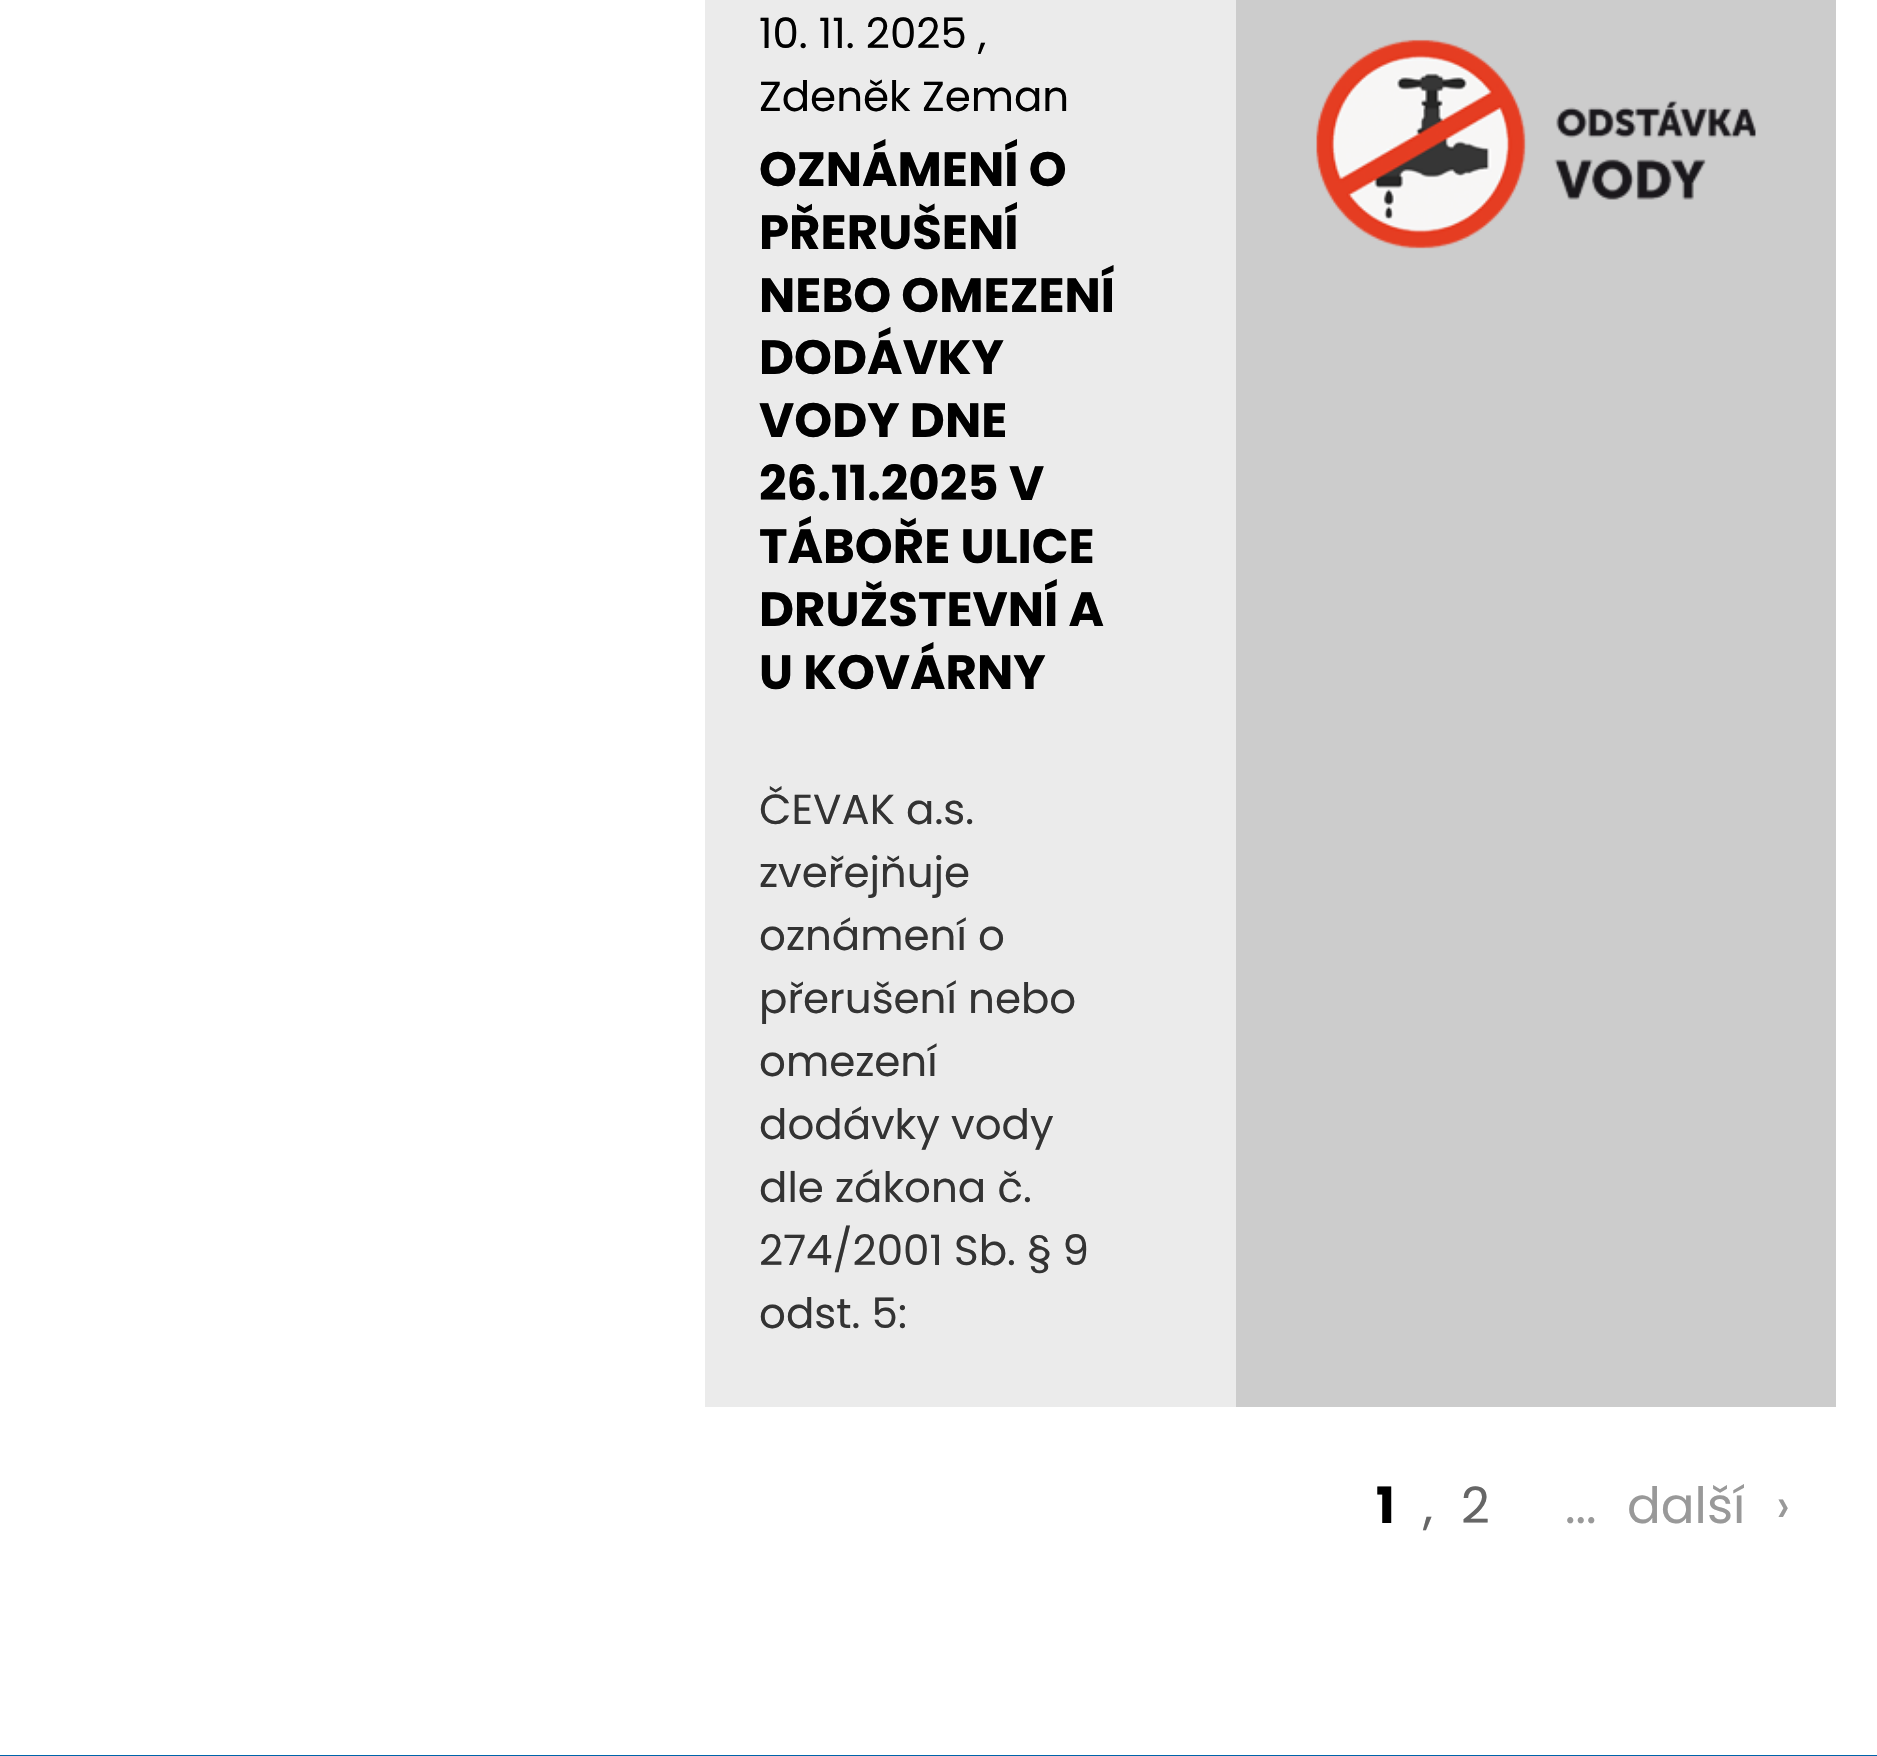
void draw(SkCanvas* canvas) {
	SkPaint fill;
	fill.setAntiAlias(true);
	auto makeFont = [&](const char* family, int weight, float size, bool italic = false) {
		SkFontStyle style(weight, SkFontStyle::kNormal_Width,
			italic ? SkFontStyle::kItalic_Slant : SkFontStyle::kUpright_Slant);
		SkFont result(fontMgr->matchFamilyStyle(family, style), size);
		result.setSubpixel(true);
		return result;
	};
	auto text = [&](const char* s, float x, float y, const SkFont& font) {
		canvas->drawString(s, x, y, font, fill);
	};
	auto box = [&](float l, float t, float r, float b) {
		canvas->drawRect(SkRect::MakeLTRB(l, t, r, b), fill);
	};
	auto picture = [&](const char* path, float l, float t, float r, float b) {
		auto image = SkImages::DeferredFromEncodedData(SkData::MakeFromFileName(path));
		canvas->drawImageRect(image, SkRect::MakeLTRB(l, t, r, b), SkSamplingOptions());
	};
	canvas->clear(0xFFFFFFFF);
	fill.setColor(0xFFEBEBEB);
	box(705, 0, 1236, 1407);
	fill.setColor(0xFFCCCCCC);
	box(1236, 0, 1836, 1407);
	picture("image0.png", 1316, 39, 1756, 249);
	fill.setColor(0xFF0064AA);
	box(0, 1755, 1877, 1756);
	auto font1 = makeFont("Poppins", 400, 42);
	fill.setColor(0xFF000000);
	text("10. 11. 2025 ,", 759, 48, font1);
	text("Zdeněk Zeman", 759, 111, font1);
	auto font2 = makeFont("Poppins", 700, 48.25f);
	text("OZNÁMENÍ O", 759, 186, font2);
	text("PŘERUŠENÍ", 759, 249, font2);
	text("NEBO OMEZENÍ", 759, 312, font2);
	text("DODÁVKY", 759, 374, font2);
	text("VODY DNE", 759, 437, font2);
	text("26.11.2025 V", 759, 500, font2);
	text("TÁBOŘE ULICE", 759, 563, font2);
	text("DRUŽSTEVNÍ A", 759, 626, font2);
	text("U KOVÁRNY", 759, 689, font2);
	fill.setColor(0xFF333333);
	text("ČEVAK a.s.", 759, 824, font1);
	text("zveřejňuje", 759, 887, font1);
	text("oznámení o", 759, 950, font1);
	text("přerušení nebo", 759, 1013, font1);
	text("omezení", 759, 1076, font1);
	text("dodávky vody", 759, 1139, font1);
	text("dle zákona č.", 759, 1202, font1);
	text("274/2001 Sb. § 9", 759, 1265, font1);
	text("odst. 5:", 759, 1328, font1);
	auto font3 = makeFont("Poppins", 700, 50);
	fill.setColor(0xFF000000);
	text("1", 1376, 1523, font3);
	auto font4 = makeFont("Poppins", 400, 50);
	fill.setColor(0xFF666666);
	text("2", 1461, 1523, font4);
	fill.setColor(0xFF999999);
	text("další", 1627, 1523, font4);
	text("›", 1776, 1523, font4);
	fill.setColor(0xFF666666);
	text(",", 1423, 1523, font4);
	fill.setColor(0xFF999999);
	text("...", 1565, 1523, font4);
}
